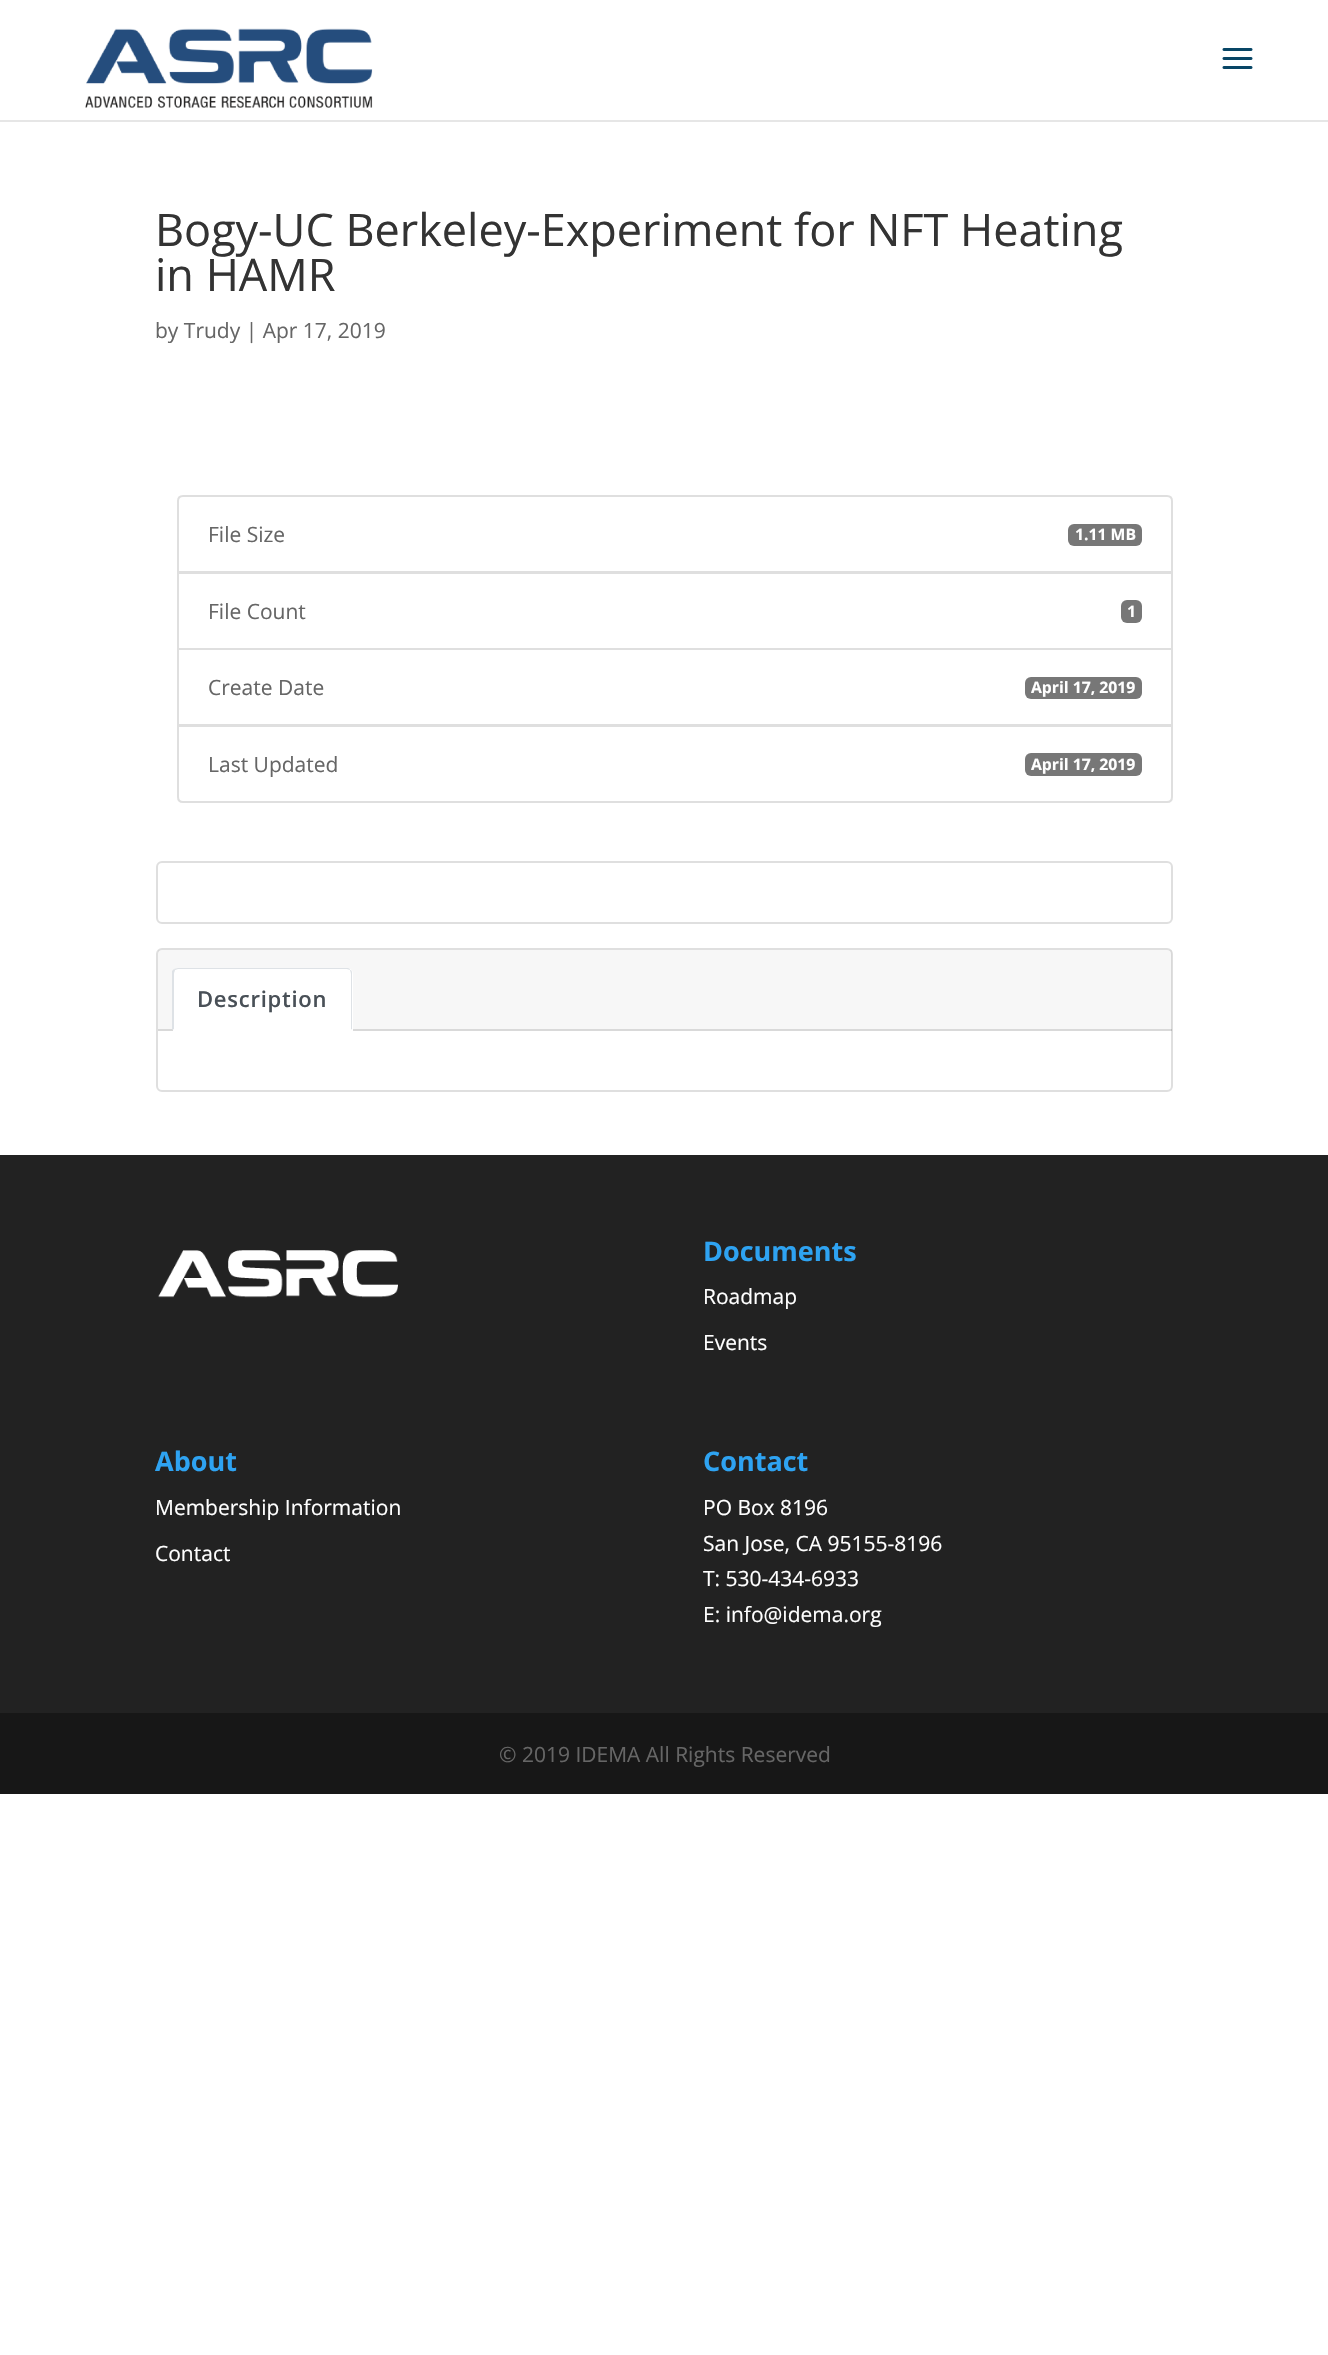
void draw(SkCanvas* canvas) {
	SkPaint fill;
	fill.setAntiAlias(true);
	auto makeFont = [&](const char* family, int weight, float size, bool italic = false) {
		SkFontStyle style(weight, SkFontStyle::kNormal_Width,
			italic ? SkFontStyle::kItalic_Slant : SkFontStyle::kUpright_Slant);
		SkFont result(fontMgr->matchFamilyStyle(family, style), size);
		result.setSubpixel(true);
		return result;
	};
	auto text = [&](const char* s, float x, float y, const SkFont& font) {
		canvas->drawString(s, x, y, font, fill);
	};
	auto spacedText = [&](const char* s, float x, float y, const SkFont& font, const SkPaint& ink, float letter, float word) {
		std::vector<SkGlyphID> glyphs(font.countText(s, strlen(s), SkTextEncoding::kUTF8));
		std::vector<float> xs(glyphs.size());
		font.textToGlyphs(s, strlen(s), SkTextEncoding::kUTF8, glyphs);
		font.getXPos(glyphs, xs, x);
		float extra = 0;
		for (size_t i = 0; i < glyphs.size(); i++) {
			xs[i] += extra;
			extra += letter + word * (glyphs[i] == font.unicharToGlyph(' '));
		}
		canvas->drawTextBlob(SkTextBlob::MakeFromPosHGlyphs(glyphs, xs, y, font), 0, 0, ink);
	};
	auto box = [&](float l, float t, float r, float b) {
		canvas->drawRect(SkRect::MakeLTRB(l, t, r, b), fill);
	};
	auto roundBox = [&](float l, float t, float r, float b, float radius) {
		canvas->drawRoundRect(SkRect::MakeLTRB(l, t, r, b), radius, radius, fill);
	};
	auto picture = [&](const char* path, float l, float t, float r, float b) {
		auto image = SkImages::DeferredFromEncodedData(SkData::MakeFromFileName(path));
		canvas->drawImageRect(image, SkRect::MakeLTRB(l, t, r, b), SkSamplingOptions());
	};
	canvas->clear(0xFFFFFFFF);
	fill.setColor(0xFFE6E6E6);
	box(0, 120, 1328, 122);
	picture("image0.png", 85, 28, 373, 108);
	picture("image1.png", 1222, 48, 1253, 69);
	fill.setStyle(SkPaint::kStroke_Style);
	fill.setStrokeWidth(2);
	fill.setColor(0xFFDFDFDF);
	canvas->drawPath(SkPathBuilder().moveTo(183, 496).lineTo(1167, 496).cubicTo(1170, 496, 1172, 498, 1172, 501).lineTo(1172, 572).lineTo(178, 572).lineTo(178, 501).cubicTo(178, 498, 180, 496, 183, 496).close().detach(), fill);
	fill.setStyle(SkPaint::kFill_Style);
	fill.setColor(0xFF777777);
	roundBox(1068, 524, 1142, 546, 6);
	fill.setStyle(SkPaint::kStroke_Style);
	fill.setColor(0xFFDFDFDF);
	canvas->drawRect(SkRect::MakeLTRB(178, 573, 1172, 649), fill);
	fill.setStyle(SkPaint::kFill_Style);
	fill.setColor(0xFF777777);
	roundBox(1121, 600, 1142, 623, 6);
	fill.setStyle(SkPaint::kStroke_Style);
	fill.setColor(0xFFDFDFDF);
	canvas->drawRect(SkRect::MakeLTRB(178, 649, 1172, 725), fill);
	fill.setStyle(SkPaint::kFill_Style);
	fill.setColor(0xFF777777);
	roundBox(1025, 677, 1142, 699, 6);
	fill.setColor(0xFFFFFFFF);
	canvas->drawPath(SkPathBuilder().moveTo(178, 726).lineTo(1172, 726).lineTo(1172, 797).cubicTo(1172, 800, 1170, 802, 1167, 802).lineTo(183, 802).cubicTo(180, 802, 178, 800, 178, 797).close().detach(), fill);
	fill.setStyle(SkPaint::kStroke_Style);
	fill.setColor(0xFFDFDFDF);
	canvas->drawPath(SkPathBuilder().moveTo(178, 726).lineTo(1172, 726).lineTo(1172, 797).cubicTo(1172, 800, 1170, 802, 1167, 802).lineTo(183, 802).cubicTo(180, 802, 178, 800, 178, 797).close().detach(), fill);
	fill.setStyle(SkPaint::kFill_Style);
	fill.setColor(0xFF777777);
	roundBox(1025, 753, 1142, 776, 6);
	fill.setStyle(SkPaint::kStroke_Style);
	fill.setColor(0xFFDFDFDF);
	canvas->drawRoundRect(SkRect::MakeLTRB(157, 862, 1172, 923), 5, 5, fill);
	canvas->drawRoundRect(SkRect::MakeLTRB(157, 949, 1172, 1091), 5, 5, fill);
	fill.setStyle(SkPaint::kFill_Style);
	fill.setColor(0x08000000);
	box(158, 950, 1172, 1031);
	fill.setColor(0x1F000000);
	box(158, 1029, 1172, 1031);
	fill.setColor(0xFFFFFFFF);
	canvas->drawPath(SkPathBuilder().moveTo(179, 968).lineTo(347, 968).cubicTo(350.5f, 968, 353, 970.5f, 353, 974).lineTo(353, 1031).lineTo(173, 1031).lineTo(173, 974).cubicTo(173, 970.5f, 175.5f, 968, 179, 968).close().detach(), fill);
	fill.setColor(0xFFDEE2E6);
	canvas->drawPath(SkPathBuilder().moveTo(178, 968).lineTo(174, 969).lineTo(175, 970).lineTo(178, 969).lineTo(347, 969).lineTo(350, 970).cubicTo(350, 968, 348, 968, 346, 968).close().detach(), fill);
	canvas->drawPath(SkPathBuilder().moveTo(352, 1030).lineTo(352, 974).cubicTo(352, 972, 352, 970, 350, 970).cubicTo(350, 971, 351, 972, 351, 974).lineTo(351, 1029).close().detach(), fill);
	fill.setColor(0xFFFFFFFF);
	canvas->drawPath(SkPathBuilder().moveTo(352, 1030).lineTo(351, 1029).lineTo(174, 1029).lineTo(173, 1030).close().detach(), fill);
	fill.setColor(0xFFDEE2E6);
	canvas->drawPath(SkPathBuilder().moveTo(172, 971).lineTo(174, 969).lineTo(175, 970).cubicTo(175, 971, 174, 972, 174, 974).lineTo(174, 1029).lineTo(172, 1030).close().detach(), fill);
	fill.setColor(0xFF222222);
	box(0, 1155, 1328, 1713);
	picture("image2.png", 158, 1250, 398, 1298);
	fill.setColor(0xFF171717);
	box(0, 1713, 1328, 1794);
	auto font1 = makeFont("Open Sans", 400, 45);
	fill.setColor(0xFF333333);
	text("Bogy-UC Berkeley-Experiment for NFT Heating", 155, 246, font1);
	text("in HAMR", 155, 291, font1);
	auto font2 = makeFont("Open Sans", 400, 21);
	fill.setColor(0xFF666666);
	text("by Trudy | Apr 17, 2019", 155, 338, font2);
	text("File Size", 208, 542, font2);
	auto font3 = makeFont("Open Sans", 700, 15.75f);
	fill.setColor(0xFFFFFFFF);
	text("1.11 MB", 1075, 540, font3);
	fill.setColor(0xFF666666);
	text("File Count", 208, 619, font2);
	fill.setColor(0xFFFFFFFF);
	text("1", 1127, 617, font3);
	fill.setColor(0xFF666666);
	text("Create Date", 208, 695, font2);
	fill.setColor(0xFFFFFFFF);
	text("April 17, 2019", 1031, 693, font3);
	fill.setColor(0xFF666666);
	text("Last Updated", 208, 772, font2);
	fill.setColor(0xFFFFFFFF);
	text("April 17, 2019", 1031, 770, font3);
	auto font4 = makeFont("Open Sans", 600, 22);
	fill.setColor(0xFF495057);
	spacedText("Description", 197, 1007, font4, fill, 0.75f, 0);
	auto font5 = makeFont("Open Sans", 700, 27);
	fill.setColor(0xFF2EA3F2);
	text("Documents", 703, 1261, font5);
	fill.setColor(0xFFFFFFFF);
	text("Roadmap", 703, 1304, font2);
	text("Events", 703, 1350, font2);
	fill.setColor(0xFF2EA3F2);
	text("About", 155, 1471, font5);
	fill.setColor(0xFFFFFFFF);
	text("Membership Information", 155, 1515, font2);
	text("Contact", 155, 1561, font2);
	fill.setColor(0xFF2EA3F2);
	text("Contact", 703, 1471, font5);
	fill.setColor(0xFFFFFFFF);
	text("PO Box 8196", 703, 1515, font2);
	text("San Jose, CA 95155-8196", 703, 1551, font2);
	text("T: 530-434-6933", 703, 1586, font2);
	text("E: info@idema.org", 703, 1622, font2);
	fill.setColor(0xFF666666);
	text("© 2019 IDEMA All Rights Reserved", 499, 1762, font2);
}
